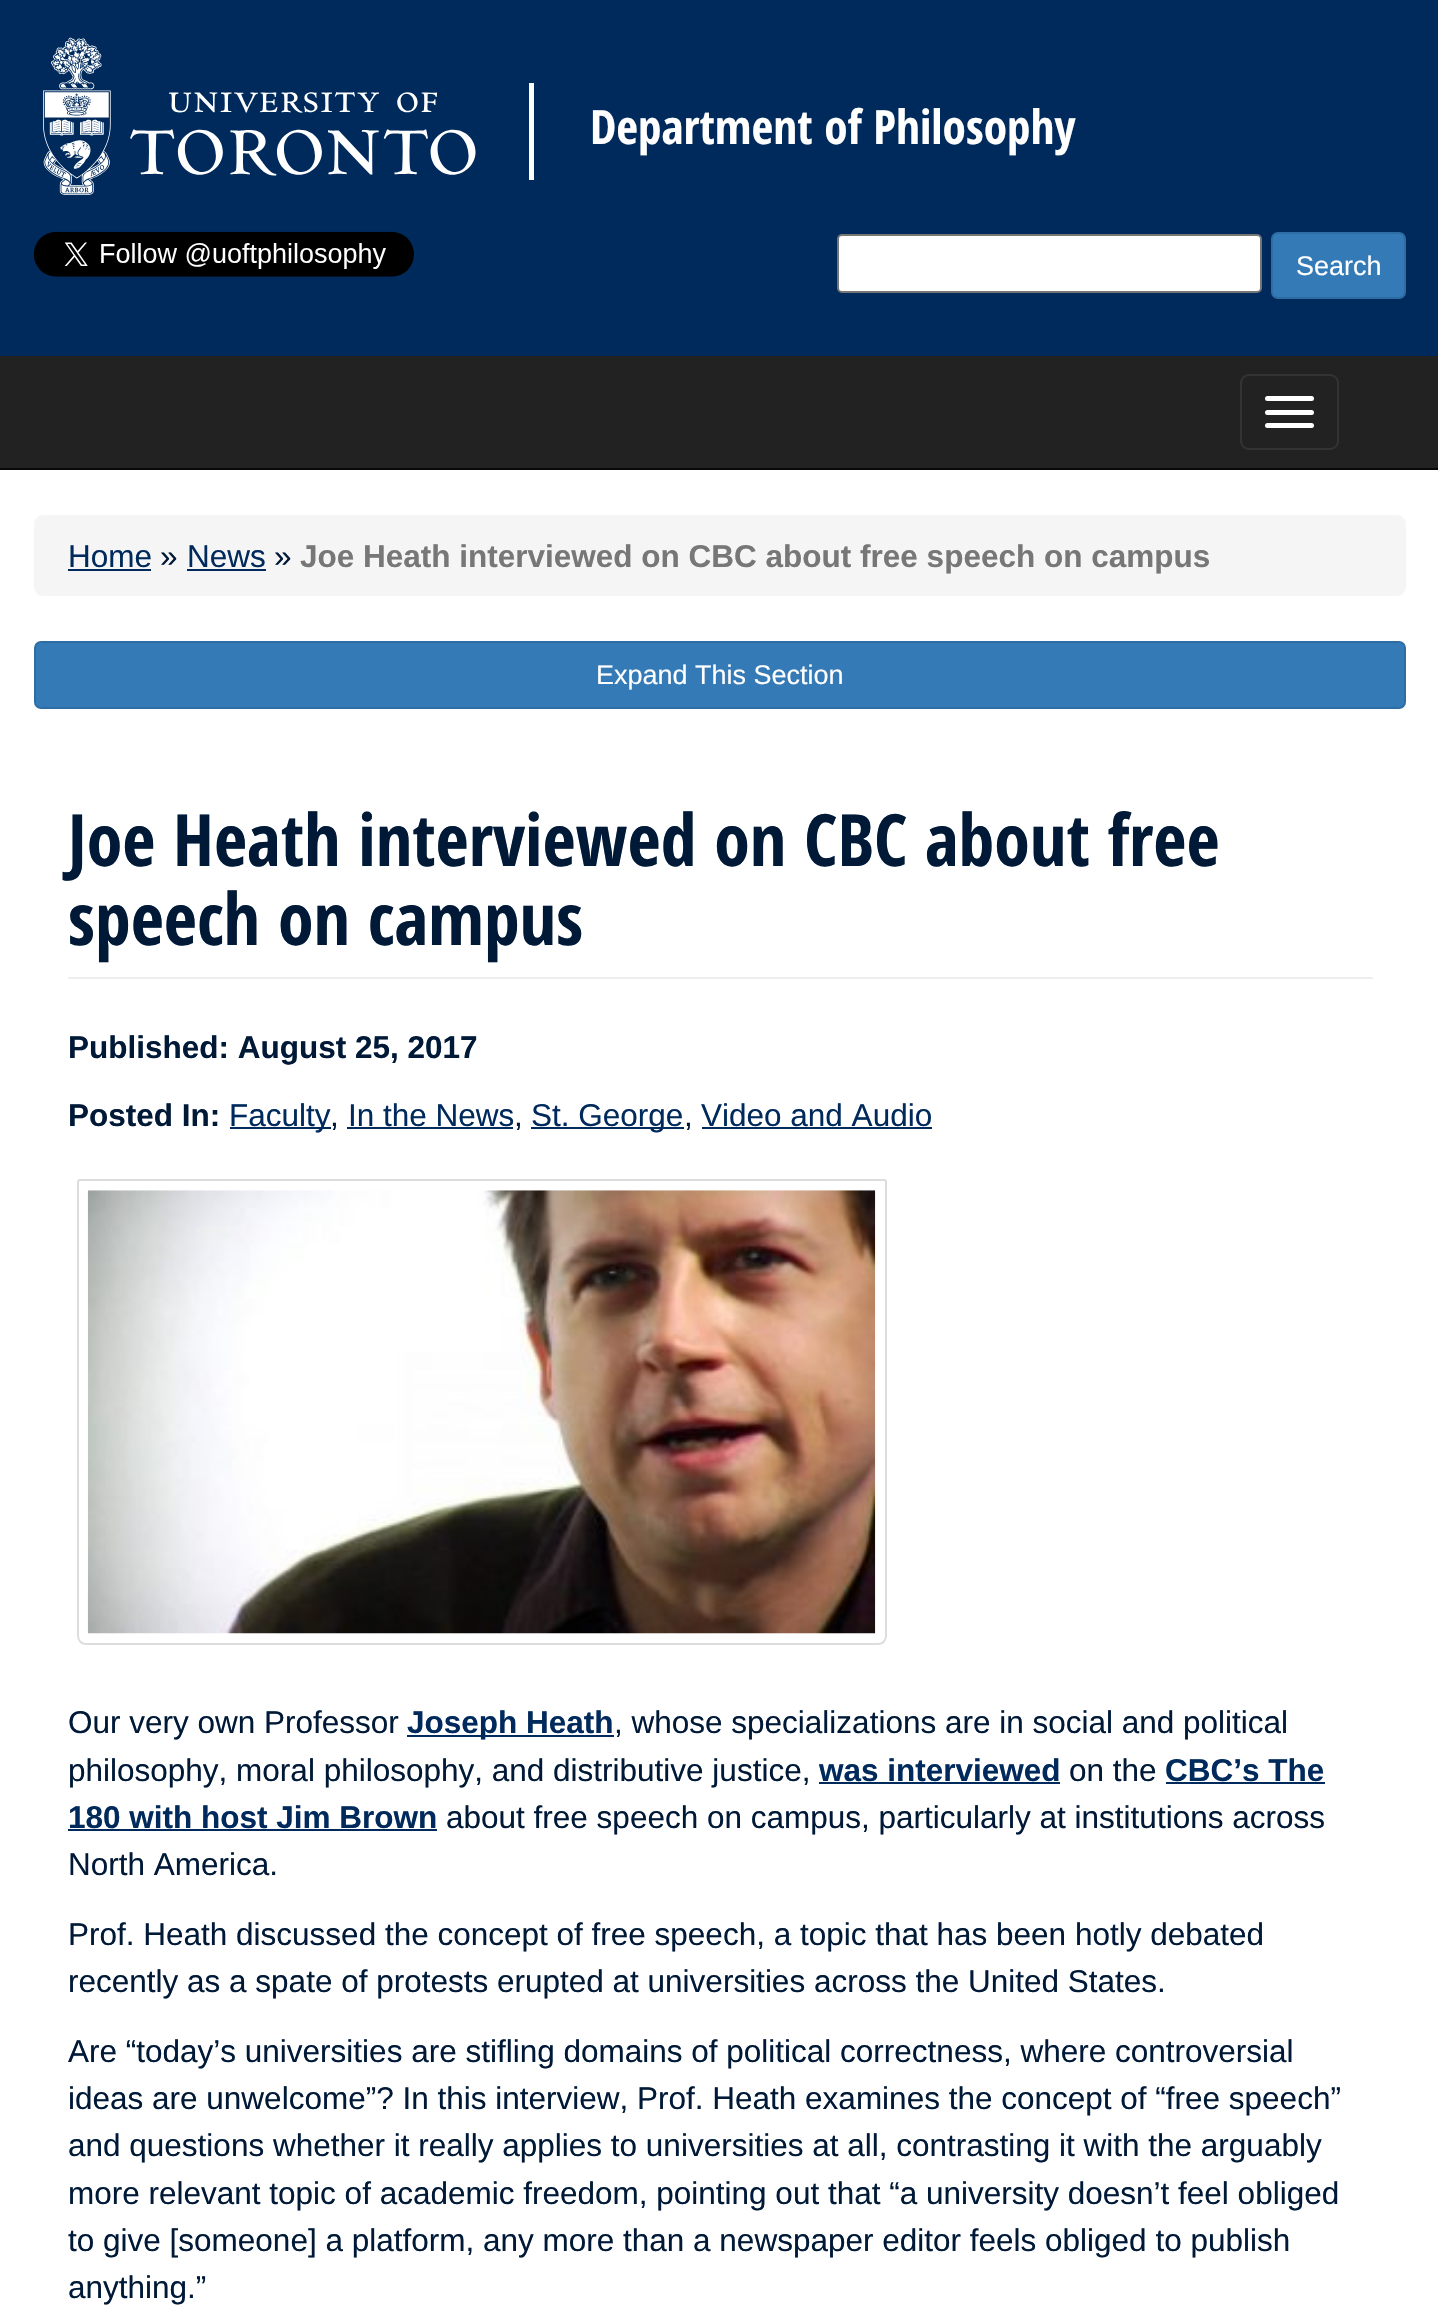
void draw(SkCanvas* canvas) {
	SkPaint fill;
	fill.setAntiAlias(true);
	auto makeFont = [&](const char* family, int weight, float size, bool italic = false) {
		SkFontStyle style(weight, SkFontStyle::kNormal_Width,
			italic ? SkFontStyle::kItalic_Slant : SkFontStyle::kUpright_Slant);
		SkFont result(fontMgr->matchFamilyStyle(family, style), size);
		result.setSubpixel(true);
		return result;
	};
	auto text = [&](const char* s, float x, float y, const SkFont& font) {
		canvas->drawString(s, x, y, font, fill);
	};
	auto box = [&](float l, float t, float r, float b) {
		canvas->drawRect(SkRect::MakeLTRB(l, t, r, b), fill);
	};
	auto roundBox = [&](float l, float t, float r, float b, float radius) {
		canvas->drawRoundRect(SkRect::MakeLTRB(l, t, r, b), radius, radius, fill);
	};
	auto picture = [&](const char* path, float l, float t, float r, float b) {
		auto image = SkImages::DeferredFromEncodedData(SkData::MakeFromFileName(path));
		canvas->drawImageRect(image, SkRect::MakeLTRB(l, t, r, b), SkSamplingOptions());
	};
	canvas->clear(0xFFFFFFFF);
	fill.setColor(0xFF002A5C);
	box(0, 0, 1438, 356);
	picture("image0.png", 43, 37, 476, 195);
	fill.setColor(0xFFFFFFFF);
	box(529, 83, 534, 180);
	picture("image1.png", 33, 231, 414, 277);
	canvas->drawRoundRect(SkRect::MakeLTRB(838, 235, 1261, 292), 4, 4, fill);
	fill.setStyle(SkPaint::kStroke_Style);
	fill.setStrokeWidth(2);
	fill.setColor(0xFF767676);
	canvas->drawRoundRect(SkRect::MakeLTRB(838, 235, 1261, 292), 4, 4, fill);
	fill.setStyle(SkPaint::kFill_Style);
	fill.setColor(0xFF337AB7);
	canvas->drawRoundRect(SkRect::MakeLTRB(1272, 233, 1405, 298), 6, 6, fill);
	fill.setStyle(SkPaint::kStroke_Style);
	fill.setColor(0xFF2E6DA4);
	canvas->drawRoundRect(SkRect::MakeLTRB(1272, 233, 1405, 298), 6, 6, fill);
	fill.setStyle(SkPaint::kFill_Style);
	fill.setColor(0xFF222222);
	box(0, 356, 1438, 468);
	fill.setColor(0xFF080808);
	box(0, 468, 1438, 470);
	fill.setStyle(SkPaint::kStroke_Style);
	fill.setColor(0xFF333333);
	canvas->drawRoundRect(SkRect::MakeLTRB(1241, 375, 1338, 449), 8, 8, fill);
	fill.setStyle(SkPaint::kFill_Style);
	fill.setColor(0xFFFFFFFF);
	roundBox(1265, 396, 1314, 401, 2.5f);
	roundBox(1265, 410, 1314, 415, 2.5f);
	roundBox(1265, 423, 1314, 428, 2.5f);
	fill.setColor(0xFFF5F5F5);
	roundBox(34, 515, 1406, 596, 9);
	fill.setColor(0xFF002A5C);
	box(68, 569, 151, 571);
	box(187, 569, 266, 571);
	fill.setColor(0xFF337AB7);
	canvas->drawRoundRect(SkRect::MakeLTRB(35, 642, 1405, 708), 6, 6, fill);
	fill.setStyle(SkPaint::kStroke_Style);
	fill.setColor(0xFF2E6DA4);
	canvas->drawRoundRect(SkRect::MakeLTRB(35, 642, 1405, 708), 6, 6, fill);
	fill.setStyle(SkPaint::kFill_Style);
	fill.setColor(0xFFEEEEEE);
	box(68, 977, 1373, 979);
	fill.setColor(0xFF002A5C);
	box(230, 1127, 331, 1129);
	box(347, 1127, 513, 1129);
	box(531, 1127, 684, 1129);
	box(702, 1127, 932, 1129);
	fill.setStyle(SkPaint::kStroke_Style);
	fill.setColor(0xFFDDDDDD);
	canvas->drawPath(SkPathBuilder().moveTo(80, 1180).lineTo(884, 1180).cubicTo(885, 1180, 886, 1181, 886, 1182).lineTo(886, 1636).cubicTo(886, 1640.5f, 882.5f, 1644, 878, 1644).lineTo(86, 1644).cubicTo(81.5f, 1644, 78, 1640.5f, 78, 1636).lineTo(78, 1182).cubicTo(78, 1181, 79, 1180, 80, 1180).close().detach(), fill);
	picture("image2.png", 87, 1190, 876, 1634);
	fill.setStyle(SkPaint::kFill_Style);
	fill.setColor(0xFF002A5C);
	box(407, 1735, 614, 1737);
	box(819, 1782, 1060, 1784);
	box(1166, 1782, 1325, 1784);
	box(68, 1829, 437, 1831);
	auto font1 = makeFont("Open Sans Condensed", 700, 47.25f);
	fill.setColor(0xFFFFFFFF);
	text("Department of Philosophy", 590, 144, font1);
	auto font2 = makeFont("Liberation Sans", 400, 27);
	text("Search", 1296, 275, font2);
	auto font3 = makeFont("Liberation Sans", 400, 31.5f);
	fill.setColor(0xFF002A5C);
	text("Home", 68, 567, font3);
	fill.setColor(0xFF001937);
	text("»", 160, 567, font3);
	fill.setColor(0xFF002A5C);
	text("News", 187, 567, font3);
	fill.setColor(0xFF001937);
	text("»", 274, 567, font3);
	auto font4 = makeFont("Liberation Sans", 700, 31.5f);
	fill.setColor(0xFF777777);
	text("Joe Heath interviewed on CBC about free speech on campus", 300, 567, font4);
	fill.setColor(0xFFFFFFFF);
	text("Expand This Section", 596, 684, font2);
	auto font5 = makeFont("Open Sans Condensed", 700, 72);
	fill.setColor(0xFF001937);
	text("Joe Heath interviewed on CBC about free", 68, 866, font5);
	text("speech on campus", 68, 945, font5);
	text("Published: August 25, 2017", 68, 1058, font4);
	text("Posted In:", 68, 1126, font4);
	fill.setColor(0xFF002A5C);
	text("Faculty", 229, 1126, font3);
	fill.setColor(0xFF001937);
	text(",", 330, 1126, font3);
	fill.setColor(0xFF002A5C);
	text("In the News", 348, 1126, font3);
	fill.setColor(0xFF001937);
	text(",", 514, 1126, font3);
	fill.setColor(0xFF002A5C);
	text("St. George", 531, 1126, font3);
	fill.setColor(0xFF001937);
	text(",", 684, 1126, font3);
	fill.setColor(0xFF002A5C);
	text("Video and Audio", 701, 1126, font3);
	fill.setColor(0xFF001937);
	text("Our very own Professor", 68, 1733, font3);
	fill.setColor(0xFF002A5C);
	text("Joseph Heath", 407, 1733, font4);
	fill.setColor(0xFF001937);
	text(", whose specializations are in social and political", 614, 1733, font3);
	text("philosophy, moral philosophy, and distributive justice,", 68, 1781, font3);
	fill.setColor(0xFF002A5C);
	text("was interviewed", 819, 1781, font4);
	fill.setColor(0xFF001937);
	text("on the", 1069, 1781, font3);
	fill.setColor(0xFF002A5C);
	text("CBC’s The", 1165, 1781, font4);
	text("180 with host Jim Brown", 68, 1828, font4);
	fill.setColor(0xFF001937);
	text("about free speech on campus, particularly at institutions across", 446, 1828, font3);
	text("North America.", 68, 1875, font3);
	text("Prof. Heath discussed the concept of free speech, a topic that has been hotly debated", 68, 1945, font3);
	text("recently as a spate of protests erupted at universities across the United States.", 68, 1992, font3);
	text("Are “today’s universities are stifling domains of political correctness, where controversial", 68, 2062, font3);
	text("ideas are unwelcome”? In this interview, Prof. Heath examines the concept of “free speech”", 68, 2109, font3);
	text("and questions whether it really applies to universities at all, contrasting it with the arguably", 68, 2156, font3);
	text("more relevant topic of academic freedom, pointing out that “a university doesn’t feel obliged", 68, 2204, font3);
	text("to give [someone] a platform, any more than a newspaper editor feels obliged to publish", 68, 2251, font3);
	text("anything.”", 68, 2298, font3);
}
